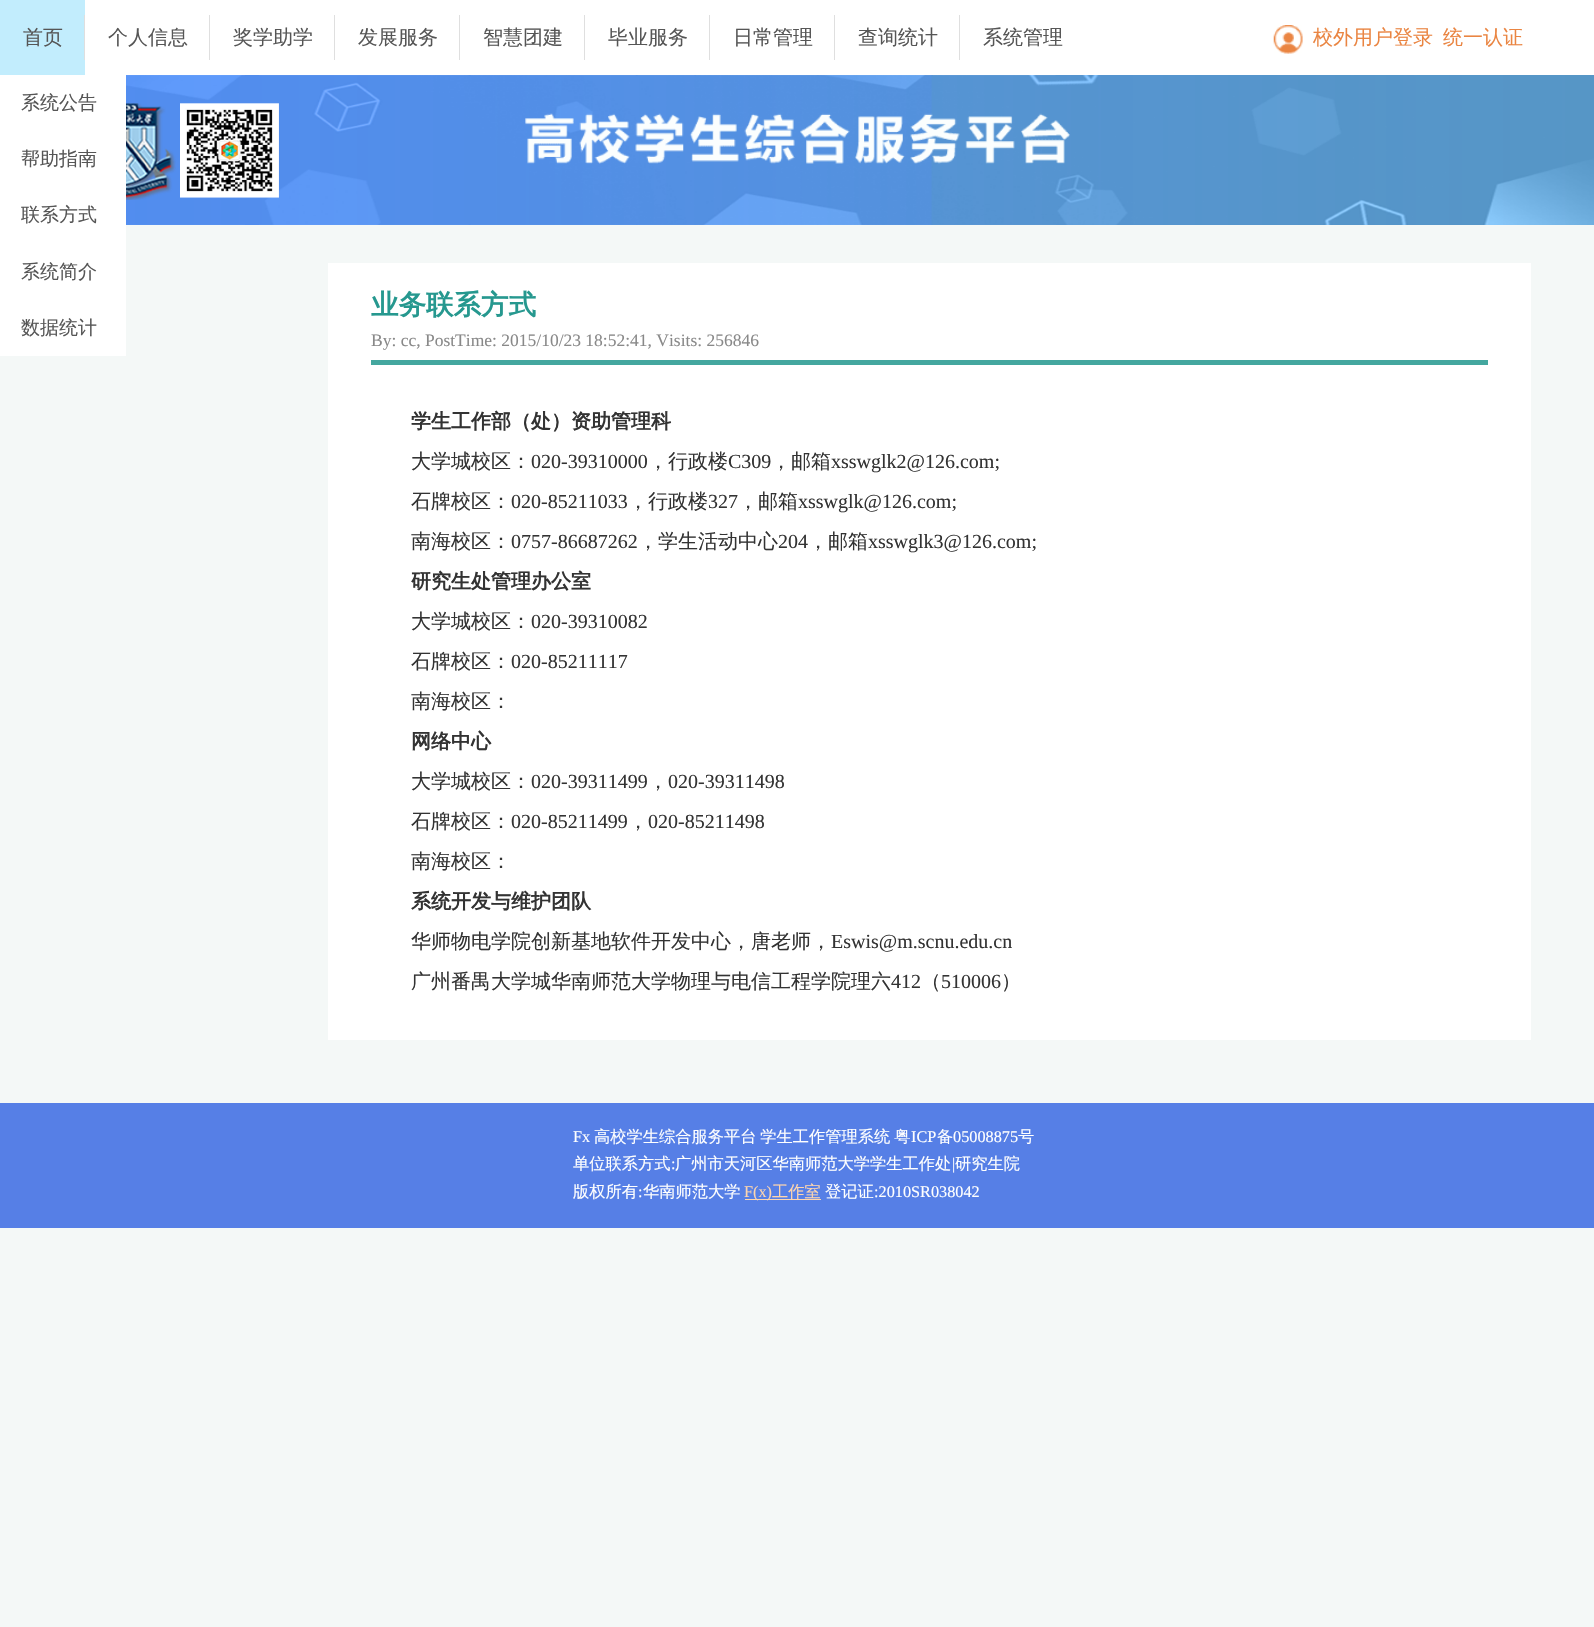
void draw(SkCanvas* canvas) {
	SkPaint fill;
	fill.setAntiAlias(true);
	auto makeFont = [&](const char* family, int weight, float size, bool italic = false) {
		SkFontStyle style(weight, SkFontStyle::kNormal_Width,
			italic ? SkFontStyle::kItalic_Slant : SkFontStyle::kUpright_Slant);
		SkFont result(fontMgr->matchFamilyStyle(family, style), size);
		result.setSubpixel(true);
		return result;
	};
	auto text = [&](const char* s, float x, float y, const SkFont& font) {
		canvas->drawString(s, x, y, font, fill);
	};
	auto spacedText = [&](const char* s, float x, float y, const SkFont& font, const SkPaint& ink, float letter, float word) {
		std::vector<SkGlyphID> glyphs(font.countText(s, strlen(s), SkTextEncoding::kUTF8));
		std::vector<float> xs(glyphs.size());
		font.textToGlyphs(s, strlen(s), SkTextEncoding::kUTF8, glyphs);
		font.getXPos(glyphs, xs, x);
		float extra = 0;
		for (size_t i = 0; i < glyphs.size(); i++) {
			xs[i] += extra;
			extra += letter + word * (glyphs[i] == font.unicharToGlyph(' '));
		}
		canvas->drawTextBlob(SkTextBlob::MakeFromPosHGlyphs(glyphs, xs, y, font), 0, 0, ink);
	};
	auto box = [&](float l, float t, float r, float b) {
		canvas->drawRect(SkRect::MakeLTRB(l, t, r, b), fill);
	};
	auto picture = [&](const char* path, float l, float t, float r, float b) {
		auto image = SkImages::DeferredFromEncodedData(SkData::MakeFromFileName(path));
		canvas->drawImageRect(image, SkRect::MakeLTRB(l, t, r, b), SkSamplingOptions());
	};
	canvas->clear(0xFFF4F8F7);
	fill.setColor(0xFFFFFFFF);
	box(85, 0, 1594, 75);
	fill.setColor(0xFFC2EDFD);
	box(0, 0, 85, 75);
	fill.setColor(0xFFFFFFFF);
	box(0, 75, 126, 356);
	fill.setColor(0xFFDFDFDF);
	box(84, 15, 85, 60);
	box(209, 15, 210, 60);
	box(334, 15, 335, 60);
	box(459, 15, 460, 60);
	box(584, 15, 585, 60);
	box(709, 15, 710, 60);
	box(834, 15, 835, 60);
	box(959, 15, 960, 60);
	picture("image0.png", 1273, 25, 1303, 54);
	picture("image1.png", 126, 75, 1594, 225);
	picture("image2.png", 126, 103, 279, 200);
	picture("image3.png", 525, 113, 1070, 164);
	fill.setColor(0xFFFFFFFF);
	box(328, 263, 1531, 1040);
	fill.setColor(0xFF44A79F);
	box(371, 360, 1488, 365);
	fill.setColor(0xFF567FE6);
	box(0, 1103, 1594, 1228);
	fill.setColor(0xFFFDD5AF);
	box(745, 1199, 821, 1200);
	auto font1 = makeFont("WenQuanYi Zen Hei", 500, 20);
	fill.setColor(0xFF565656);
	text("首页", 23, 44, font1);
	auto font2 = makeFont("WenQuanYi Zen Hei", 500, 19);
	text("系统公告", 21, 109, font2);
	text("帮助指南", 21, 165, font2);
	text("联系方式", 21, 221, font2);
	text("系统简介", 21, 278, font2);
	text("数据统计", 21, 334, font2);
	text("个人信息", 108, 44, font1);
	text("奖学助学", 233, 44, font1);
	text("发展服务", 358, 44, font1);
	text("智慧团建", 483, 44, font1);
	text("毕业服务", 608, 44, font1);
	text("日常管理", 733, 44, font1);
	text("查询统计", 858, 44, font1);
	text("系统管理", 983, 44, font1);
	fill.setColor(0xFFEA8542);
	text("校外用户登录", 1313, 44, font1);
	text("统一认证", 1443, 44, font1);
	auto font3 = makeFont("WenQuanYi Zen Hei", 700, 27.5f);
	fill.setColor(0xFF26988F);
	text("业务联系方式", 371, 314, font3);
	auto font4 = makeFont("Liberation Serif", 400, 17.5f);
	fill.setColor(0xFF898989);
	text("By: cc, PostTime: 2015/10/23 18:52:41, Visits: 256846", 371, 346, font4);
	auto font5 = makeFont("WenQuanYi Zen Hei", 700, 20);
	fill.setColor(0xFF333333);
	text("学生工作部（处）资助管理科", 411, 428, font5);
	text("大学城校区：", 411, 468, font1);
	auto font6 = makeFont("Liberation Serif", 400, 20);
	text("020-39310000", 531, 468, font6);
	text("，行政楼", 648, 468, font1);
	text("C309", 728, 468, font6);
	text("，邮箱", 771, 468, font1);
	text("xsswglk2@126.com;", 831, 468, font6);
	text("石牌校区：", 411, 508, font1);
	text("020-85211033", 511, 508, font6);
	text("，行政楼", 628, 508, font1);
	text("327", 708, 508, font6);
	text("，邮箱", 738, 508, font1);
	text("xsswglk@126.com;", 798, 508, font6);
	text("南海校区：", 411, 548, font1);
	text("0757-86687262", 511, 548, font6);
	text("，学生活动中心", 638, 548, font1);
	text("204", 778, 548, font6);
	text("，邮箱", 808, 548, font1);
	text("xsswglk3@126.com;", 868, 548, font6);
	text("研究生处管理办公室", 411, 588, font5);
	text("大学城校区：", 411, 628, font1);
	text("020-39310082", 531, 628, font6);
	text("石牌校区：", 411, 668, font1);
	text("020-85211117", 511, 668, font6);
	text("南海校区：", 411, 708, font1);
	text("网络中心", 411, 748, font5);
	text("大学城校区：", 411, 788, font1);
	text("020-39311499", 531, 788, font6);
	text("，", 648, 788, font1);
	text("020-39311498", 668, 788, font6);
	text("石牌校区：", 411, 828, font1);
	text("020-85211499", 511, 828, font6);
	text("，", 628, 828, font1);
	text("020-85211498", 648, 828, font6);
	text("南海校区：", 411, 868, font1);
	text("系统开发与维护团队", 411, 908, font5);
	text("华师物电学院创新基地软件开发中心，唐老师，", 411, 948, font1);
	text("Eswis@m.scnu.edu.cn", 831, 948, font6);
	text("广州番禺大学城华南师范大学物理与电信工程学院理六", 411, 988, font1);
	text("412", 891, 988, font6);
	text("（", 921, 988, font1);
	text("510006", 941, 988, font6);
	text("）", 1001, 988, font1);
	auto font7 = makeFont("Liberation Serif", 400, 16.25f);
	fill.setColor(0xFFFFFFFF);
	text("Fx", 573, 1142, font7);
	auto font8 = makeFont("WenQuanYi Zen Hei", 500, 16.25f);
	spacedText("高校学生综合服务平台 学生工作管理系统 粤", 594, 1142, font8, fill, 0, -1);
	text("ICP", 911, 1142, font7);
	text("备", 937, 1142, font8);
	text("05008875", 953, 1142, font7);
	text("号", 1018, 1142, font8);
	text("单位联系方式", 573, 1169, font8);
	text(":", 671, 1169, font7);
	text("广州市天河区华南师范大学学生工作处", 675, 1169, font8);
	text("|", 952, 1169, font7);
	text("研究生院", 955, 1169, font8);
	text("版权所有", 573, 1197, font8);
	text(":", 638, 1197, font7);
	text("华南师范大学", 643, 1197, font8);
	fill.setColor(0xFFFDD5AF);
	text("F(x)", 744, 1197, font7);
	text("工作室", 772, 1197, font8);
	fill.setColor(0xFFFFFFFF);
	text("登记证", 825, 1197, font8);
	text(":2010SR038042", 874, 1197, font7);
}
